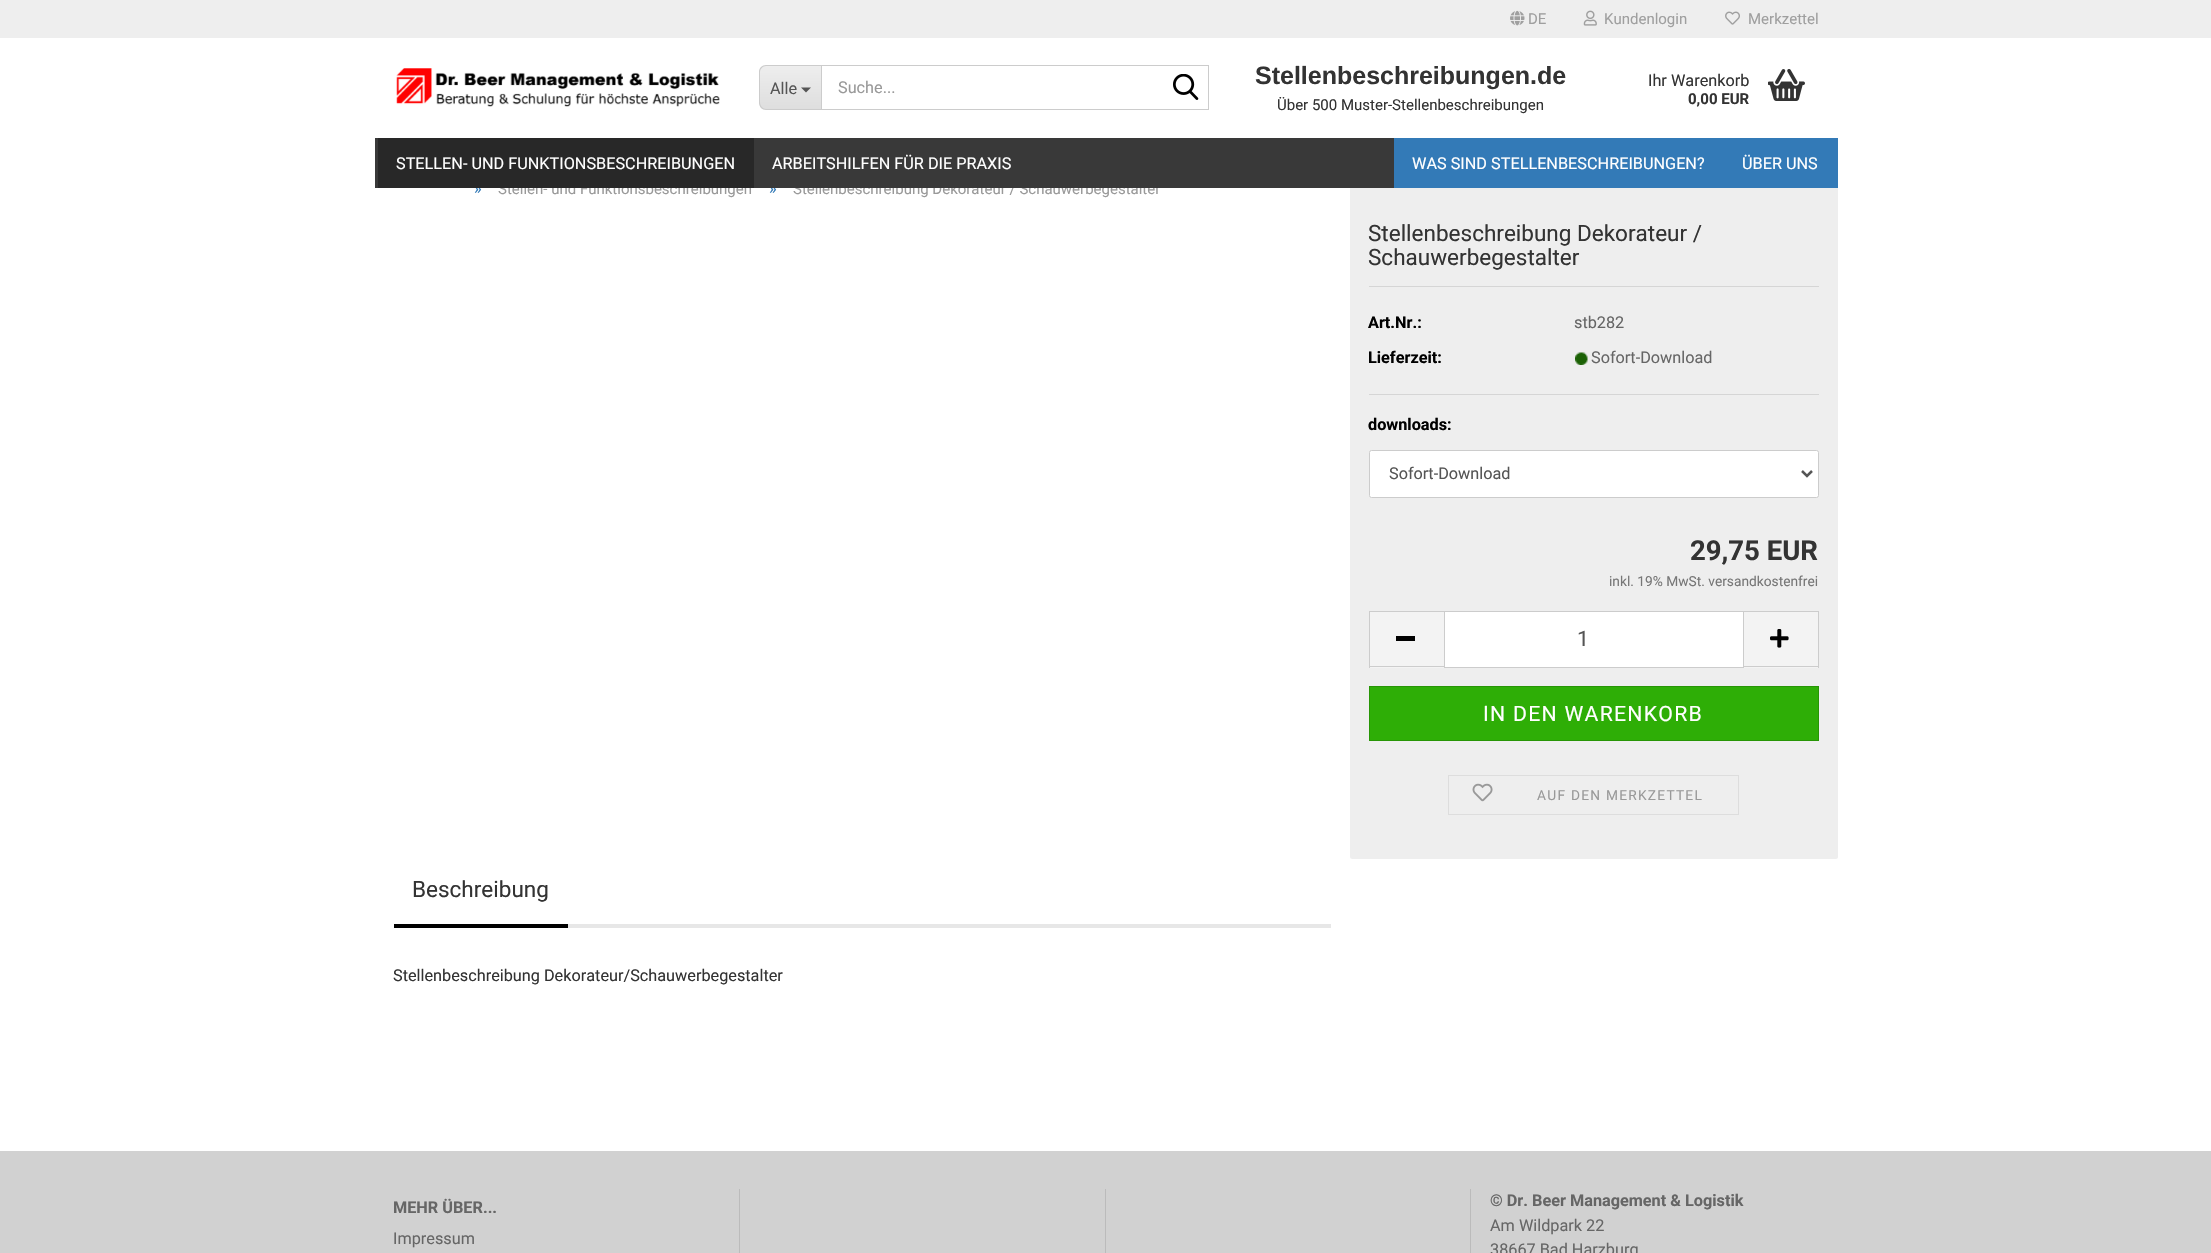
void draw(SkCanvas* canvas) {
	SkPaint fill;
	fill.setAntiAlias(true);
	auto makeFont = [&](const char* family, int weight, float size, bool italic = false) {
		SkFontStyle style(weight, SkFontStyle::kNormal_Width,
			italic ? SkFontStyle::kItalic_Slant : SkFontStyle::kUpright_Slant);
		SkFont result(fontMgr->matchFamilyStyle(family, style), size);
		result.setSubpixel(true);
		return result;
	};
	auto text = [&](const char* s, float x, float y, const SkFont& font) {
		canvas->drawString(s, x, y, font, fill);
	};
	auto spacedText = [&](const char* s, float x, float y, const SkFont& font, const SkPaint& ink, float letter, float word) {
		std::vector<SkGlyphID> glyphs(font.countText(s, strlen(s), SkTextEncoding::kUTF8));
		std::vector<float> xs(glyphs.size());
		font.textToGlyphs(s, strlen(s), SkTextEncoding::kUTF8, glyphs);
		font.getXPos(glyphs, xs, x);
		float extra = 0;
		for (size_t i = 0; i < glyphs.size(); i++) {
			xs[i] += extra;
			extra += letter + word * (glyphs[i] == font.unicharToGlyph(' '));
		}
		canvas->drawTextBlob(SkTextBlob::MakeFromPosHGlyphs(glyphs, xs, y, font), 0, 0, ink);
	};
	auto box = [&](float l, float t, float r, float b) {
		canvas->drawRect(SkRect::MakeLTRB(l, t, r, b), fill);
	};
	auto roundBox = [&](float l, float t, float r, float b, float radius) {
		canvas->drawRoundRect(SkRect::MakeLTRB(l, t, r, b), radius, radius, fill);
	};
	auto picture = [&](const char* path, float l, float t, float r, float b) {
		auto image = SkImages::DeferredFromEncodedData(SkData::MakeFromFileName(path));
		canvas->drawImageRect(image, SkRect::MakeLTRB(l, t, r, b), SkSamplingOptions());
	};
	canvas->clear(0xFFFFFFFF);
	fill.setColor(0xFFEEEEEE);
	box(0, 0, 2211, 38);
	picture("image0.png", 1510, 10, 1525, 26);
	picture("image1.png", 1583, 10, 1597, 26);
	picture("image2.png", 1725, 11, 1740, 25);
	picture("image3.png", 396, 68, 720, 107);
	canvas->save();
	canvas->clipPath(SkPathBuilder().moveTo(767, 65).lineTo(821, 65).lineTo(821, 110).lineTo(767, 110).cubicTo(762.5f, 110, 759, 106.5f, 759, 102).lineTo(759, 73).cubicTo(759, 68.5f, 762.5f, 65, 767, 65).close().detach(), true);
	{
		const SkColor colors[] = {0xFFEEEEEE, 0xFFDEDEDE};
		const float stops[] = {0, 1};
		const SkPoint ends[] = {{791, 66}, {791, 109}};
		fill.setShader(SkGradientShader::MakeLinear(ends, colors, stops, 2, SkTileMode::kClamp));
		fill.setAlpha(255);
	}
	box(759, 66, 821, 109);
	canvas->restore();
	fill.setShader(nullptr);
	fill.setColor(0xFFCCCCCC);
	canvas->drawPath(SkPathBuilder(SkPathFillType::kEvenOdd).moveTo(766, 65).lineTo(821, 65).lineTo(821, 110).lineTo(766, 110).cubicTo(762, 110, 759, 107, 759, 102).lineTo(759, 72).cubicTo(759, 68, 762, 65, 766, 65).close().moveTo(766, 66).lineTo(821, 66).lineTo(821, 109).lineTo(766, 109).cubicTo(763, 109, 760, 106, 760, 102).lineTo(760, 72).cubicTo(760, 69, 763, 66, 766, 66).close().detach(), fill);
	fill.setColor(0xFF555555);
	canvas->drawPath(SkPathBuilder().moveTo(801, 87.5f).lineTo(811, 87.5f).lineTo(806, 92.5f).close().detach(), fill);
	fill.setStyle(SkPaint::kStroke_Style);
	fill.setStrokeWidth(1);
	fill.setColor(0xFFCCCCCC);
	canvas->drawRect(SkRect::MakeLTRB(821.5f, 65.5f, 1208.5f, 109.5f), fill);
	picture("image4.png", 1173, 74, 1199, 100);
	picture("image5.png", 1768, 69, 1805, 101);
	fill.setStyle(SkPaint::kFill_Style);
	fill.setColor(0xFFEEEEEE);
	roundBox(1350, 173, 1838, 859, 2.5f);
	fill.setColor(0xFFD5D5D5);
	box(1369, 286, 1819, 287);
	box(1369, 394, 1819, 395);
	picture("image6.png", 1575, 352, 1588, 365);
	fill.setColor(0xFFFFFFFF);
	canvas->drawRoundRect(SkRect::MakeLTRB(1369.5f, 450.5f, 1818.5f, 497.5f), 2, 2, fill);
	fill.setStyle(SkPaint::kStroke_Style);
	fill.setColor(0xFFCCCCCC);
	canvas->drawRoundRect(SkRect::MakeLTRB(1369.5f, 450.5f, 1818.5f, 497.5f), 2, 2, fill);
	fill.setStrokeWidth(2.5f);
	fill.setColor(0xFF555555);
	canvas->drawPath(SkPathBuilder().moveTo(1802, 471).lineTo(1807, 476).lineTo(1812, 471).detach(), fill);
	fill.setStyle(SkPaint::kFill_Style);
	fill.setColor(0xFFF3F3F3);
	box(1370, 612, 1444, 668);
	fill.setColor(0xFFCCCCCC);
	box(1369, 611, 1444, 612);
	box(1369, 666, 1444, 667);
	box(1369, 611, 1370, 668);
	fill.setColor(0xFF000000);
	box(1396, 636, 1415, 641);
	fill.setColor(0xFFFFFFFF);
	canvas->drawRect(SkRect::MakeLTRB(1444.5f, 611.5f, 1743.5f, 667.5f), fill);
	fill.setStyle(SkPaint::kStroke_Style);
	fill.setStrokeWidth(1);
	fill.setColor(0xFFCCCCCC);
	canvas->drawRect(SkRect::MakeLTRB(1444.5f, 611.5f, 1743.5f, 667.5f), fill);
	fill.setStyle(SkPaint::kFill_Style);
	fill.setColor(0xFFF3F3F3);
	box(1744, 612, 1818, 668);
	fill.setColor(0xFFCCCCCC);
	box(1744, 611, 1819, 612);
	box(1818, 611, 1819, 668);
	box(1744, 666, 1819, 667);
	picture("image7.png", 1770, 629, 1789, 648);
	fill.setColor(0xFF2EAE06);
	canvas->drawRect(SkRect::MakeLTRB(1369.5f, 686.5f, 1818.5f, 740.5f), fill);
	fill.setStyle(SkPaint::kStroke_Style);
	fill.setColor(0xFF279505);
	canvas->drawRect(SkRect::MakeLTRB(1369.5f, 686.5f, 1818.5f, 740.5f), fill);
	fill.setColor(0xFFDDDDDD);
	canvas->drawRect(SkRect::MakeLTRB(1448.5f, 775.5f, 1738.5f, 814.5f), fill);
	picture("image8.png", 1472, 783, 1493, 802);
	fill.setStyle(SkPaint::kFill_Style);
	fill.setColor(0xFFE7E7E7);
	box(568, 924, 1331, 928);
	fill.setColor(0xFF000000);
	box(394, 924, 568, 928);
	fill.setColor(0xFFD1D1D1);
	box(0, 1151, 2211, 1253);
	fill.setColor(0xFFBBBBBB);
	box(739, 1189, 740, 1253);
	box(1105, 1189, 1106, 1253);
	box(1470, 1189, 1471, 1253);
	auto font1 = makeFont("Roboto", 400, 15);
	fill.setColor(0xFF9F9F9F);
	text("DE", 1528, 24, font1);
	text("Kundenlogin", 1604, 24, font1);
	text("Merkzettel", 1748, 24, font1);
	auto font2 = makeFont("Roboto", 400, 16.25f);
	fill.setColor(0xFF555555);
	text("Alle", 770, 94, font2);
	fill.setColor(0xFF999999);
	text("Suche...", 838, 93, font2);
	auto font3 = makeFont("Liberation Sans", 700, 25);
	fill.setColor(0xFF333333);
	text("Stellenbeschreibungen.de", 1255, 84, font3);
	text("Über 500 Muster-Stellenbeschreibungen", 1277, 110, font1);
	text("Ihr Warenkorb", 1648, 86, font2);
	auto font4 = makeFont("Roboto", 700, 15);
	text("0,00 EUR", 1688, 104, font4);
	fill.setColor(0xFF337AB7);
	text("»", 474, 194, font2);
	fill.setColor(0xFF999999);
	text("Stellen- und Funktionsbeschreibungen", 498, 194, font1);
	fill.setColor(0xFF337AB7);
	text("»", 769, 194, font2);
	fill.setColor(0xFF999999);
	text("Stellenbeschreibung Dekorateur / Schauwerbegestalter", 793, 194, font1);
	fill.setColor(0xFFFFFFFF);
	box(474, 173, 1838, 188);
	fill.setColor(0xFF337AB7);
	box(1394, 138, 1838, 188);
	fill.setColor(0xFFFFFFFF);
	text("ÜBER UNS", 1742, 169, font2);
	text("WAS SIND STELLENBESCHREIBUNGEN?", 1412, 169, font2);
	fill.setColor(0xFF393939);
	box(375, 138, 1394, 188);
	fill.setColor(0xFFFFFFFF);
	text("ARBEITSHILFEN FÜR DIE PRAXIS", 772, 169, font2);
	fill.setColor(0xFF282828);
	box(378, 138, 754, 188);
	fill.setColor(0xFFFFFFFF);
	text("STELLEN- UND FUNKTIONSBESCHREIBUNGEN", 396, 169, font2);
	auto font5 = makeFont("Roboto", 400, 22.5f);
	fill.setColor(0xFF333333);
	text("Stellenbeschreibung Dekorateur /", 1368, 241, font5);
	text("Schauwerbegestalter", 1368, 265, font5);
	auto font6 = makeFont("Roboto", 700, 16.25f);
	fill.setColor(0xFF000000);
	text("Art.Nr.:", 1368, 328, font6);
	fill.setColor(0xFF666666);
	text("stb282", 1574, 328, font2);
	fill.setColor(0xFF000000);
	text("Lieferzeit:", 1368, 363, font6);
	fill.setColor(0xFF666666);
	text("Sofort-Download", 1591, 363, font2);
	fill.setColor(0xFF000000);
	text("downloads:", 1368, 430, font6);
	fill.setColor(0xFF555555);
	text("Sofort-Download", 1389, 479, font2);
	auto font7 = makeFont("Roboto", 700, 27.5f);
	fill.setColor(0xFF333333);
	text("29,75 EUR", 1690, 560, font7);
	auto font8 = makeFont("Roboto", 400, 13.75f);
	fill.setColor(0xFF777777);
	text("inkl. 19% MwSt. versandkostenfrei", 1609, 586, font8);
	auto font9 = makeFont("Roboto", 400, 21.25f);
	fill.setColor(0xFF555555);
	text("1", 1577, 646, font9);
	fill.setColor(0xFFFFFFFF);
	spacedText("IN DEN WARENKORB", 1483, 721, font9, fill, 1.25f, 0);
	fill.setColor(0xFF999999);
	spacedText("AUF DEN MERKZETTEL", 1537, 800, font8, fill, 1.25f, 0);
	fill.setColor(0xFF333333);
	text("Beschreibung", 412, 897, font5);
	text("Stellenbeschreibung Dekorateur/Schauwerbegestalter", 393, 981, font2);
	fill.setColor(0xFF666666);
	text("MEHR ÜBER...", 393, 1213, font6);
	text("Impressum", 393, 1244, font2);
	text("© Dr. Beer Management & Logistik", 1490, 1206, font6);
	text("Am Wildpark 22", 1490, 1231, font2);
	text("38667 Bad Harzburg", 1490, 1255, font2);
}
